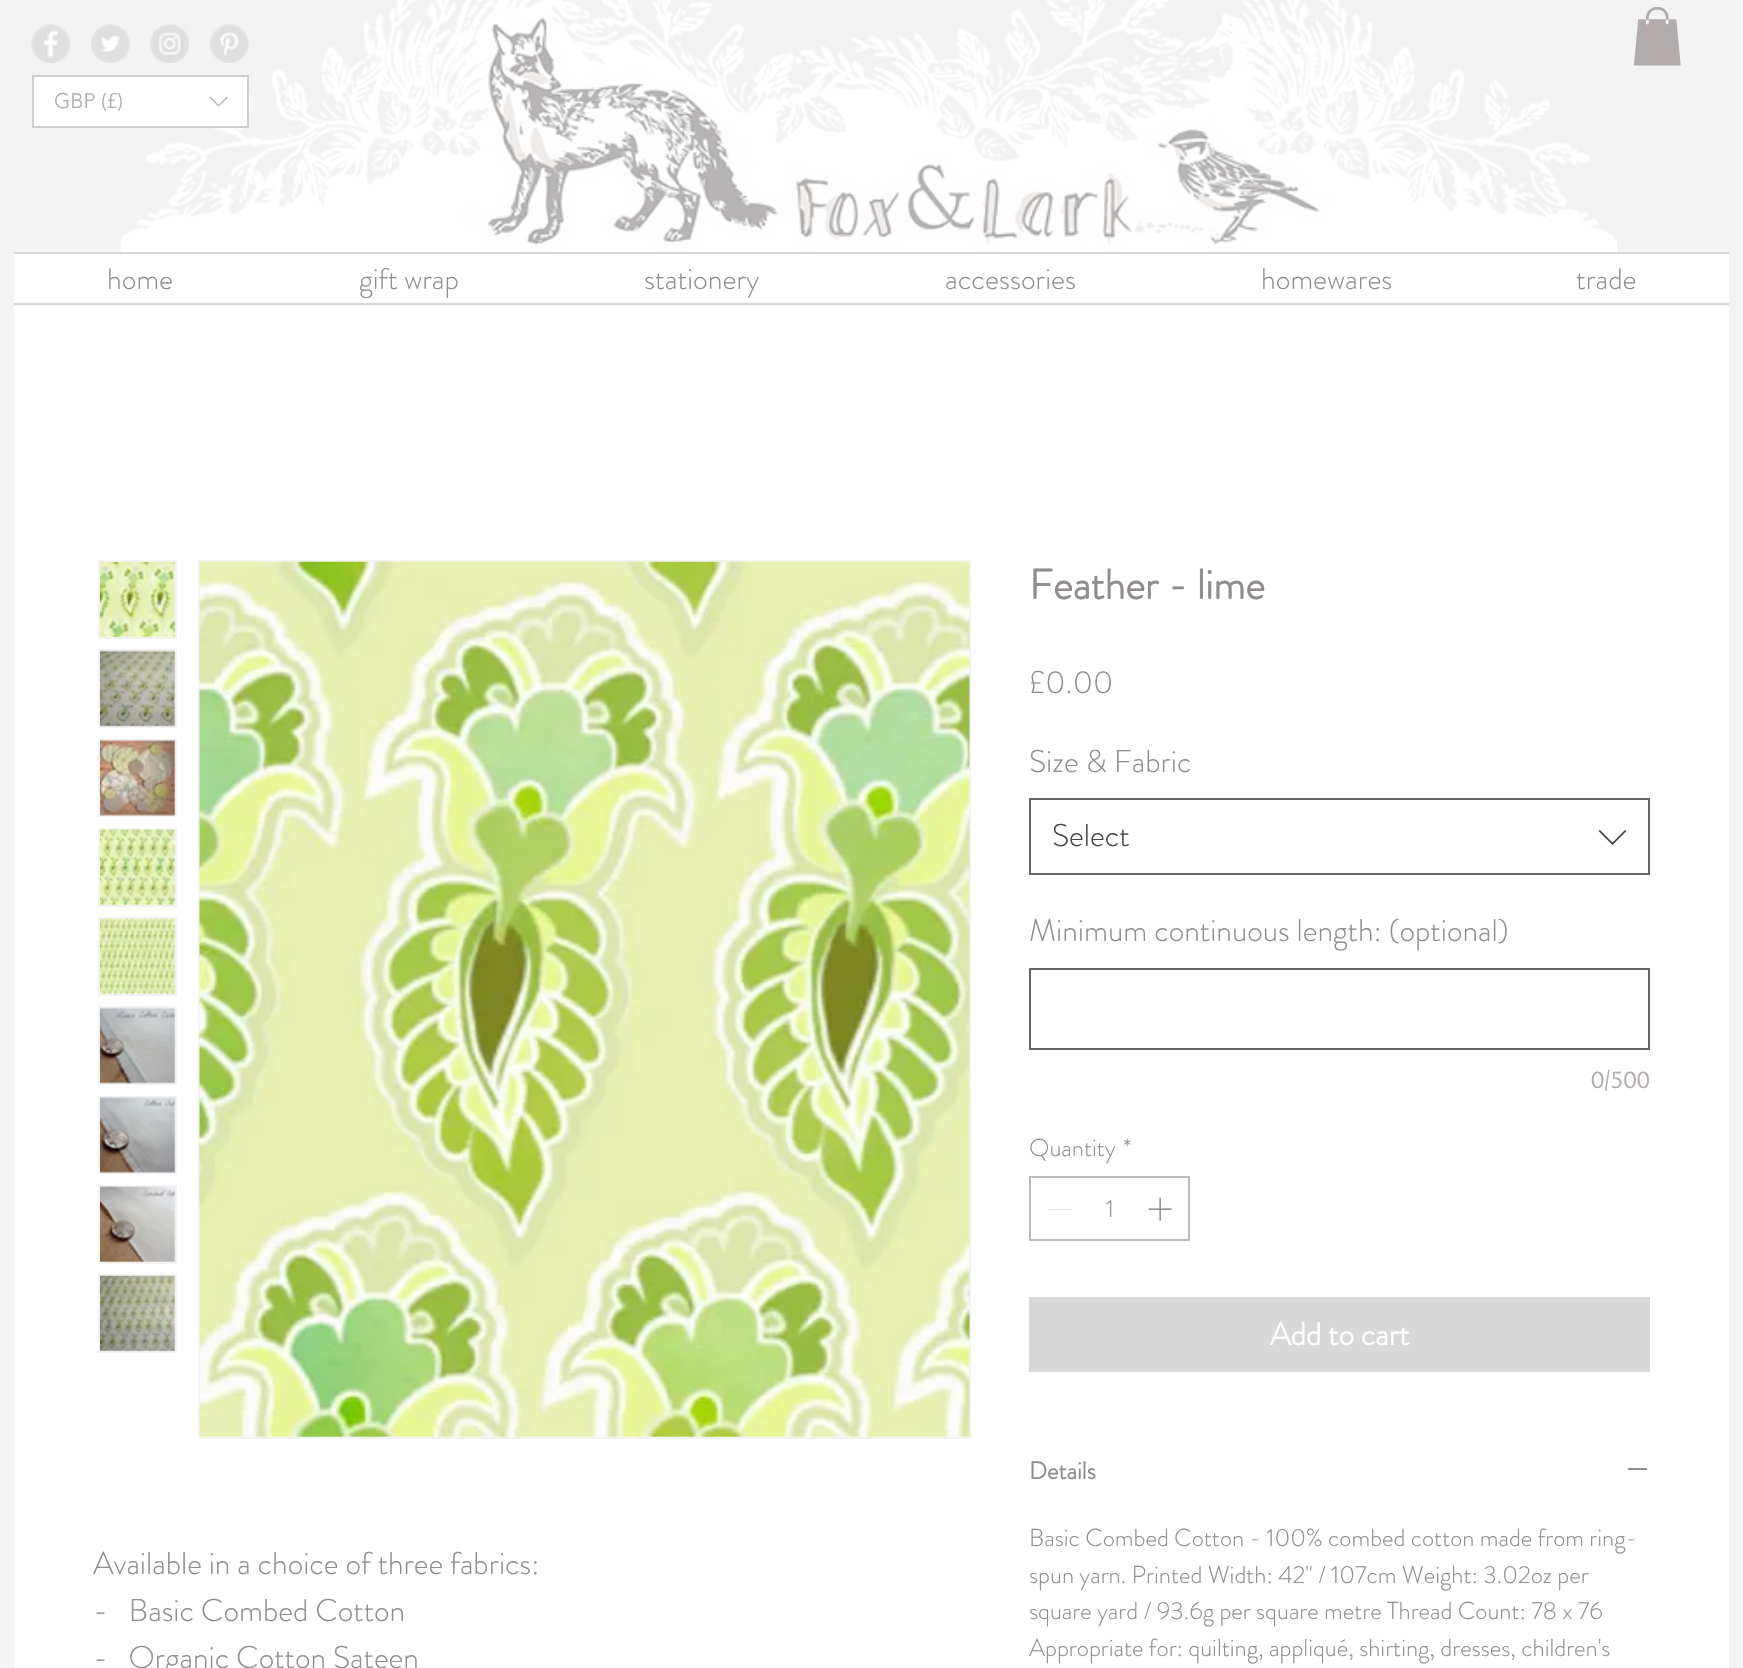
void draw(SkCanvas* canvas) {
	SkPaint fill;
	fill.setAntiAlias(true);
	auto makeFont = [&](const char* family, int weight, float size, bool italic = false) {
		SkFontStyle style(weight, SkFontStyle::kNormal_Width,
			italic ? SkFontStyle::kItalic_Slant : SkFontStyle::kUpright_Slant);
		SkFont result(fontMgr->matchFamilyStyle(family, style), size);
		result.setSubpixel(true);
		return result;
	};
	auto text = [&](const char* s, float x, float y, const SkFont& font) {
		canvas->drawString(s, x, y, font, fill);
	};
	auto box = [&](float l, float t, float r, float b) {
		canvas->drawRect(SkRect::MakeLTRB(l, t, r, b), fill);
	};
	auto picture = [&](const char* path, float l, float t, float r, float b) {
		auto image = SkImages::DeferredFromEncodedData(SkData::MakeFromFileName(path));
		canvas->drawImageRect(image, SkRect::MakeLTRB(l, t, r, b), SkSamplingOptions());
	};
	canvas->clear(0xFFF3F3F3);
	picture("image0.png", 120, 0, 1617, 252);
	picture("image1.png", 1634, 7, 1681, 66);
	picture("image2.png", 31, 24, 70, 63);
	picture("image3.png", 91, 24, 130, 63);
	picture("image4.png", 150, 24, 189, 63);
	picture("image5.png", 210, 24, 249, 63);
	fill.setColor(0xFFFFFFFF);
	canvas->drawRect(SkRect::MakeLTRB(33, 76, 248, 127), fill);
	fill.setStyle(SkPaint::kStroke_Style);
	fill.setStrokeWidth(2);
	fill.setColor(0xFFD0CDCD);
	canvas->drawRect(SkRect::MakeLTRB(33, 76, 248, 127), fill);
	fill.setStyle(SkPaint::kFill_Style);
	fill.setColor(0xFFB1ABAB);
	canvas->drawPath(SkPathBuilder(SkPathFillType::kEvenOdd).moveTo(227, 96.5f).lineTo(228, 97.5f).lineTo(218.5f, 106.5f).lineTo(209.5f, 97.5f).lineTo(210.5f, 96.5f).lineTo(218.5f, 105).close().detach(), fill);
	fill.setColor(0xFFFFFFFF);
	box(14, 254, 1729, 303);
	fill.setColor(0xFFD8D8D8);
	box(14, 252, 1729, 254);
	box(14, 303, 1729, 305);
	fill.setColor(0xFFFFFFFF);
	box(14, 306, 1729, 1668);
	fill.setStyle(SkPaint::kStroke_Style);
	fill.setColor(0xFFF3F3F3);
	canvas->drawRect(SkRect::MakeLTRB(99, 561, 176, 638), fill);
	picture("image6.png", 100, 562, 176, 638);
	canvas->drawRect(SkRect::MakeLTRB(99, 650, 176, 727), fill);
	picture("image7.png", 100, 650, 176, 727);
	canvas->drawRect(SkRect::MakeLTRB(99, 740, 176, 816), fill);
	picture("image8.png", 100, 739, 176, 816);
	canvas->drawRect(SkRect::MakeLTRB(99, 829, 176, 906), fill);
	picture("image9.png", 100, 829, 176, 905);
	canvas->drawRect(SkRect::MakeLTRB(99, 918, 176, 995), fill);
	picture("image10.png", 100, 918, 176, 995);
	canvas->drawRect(SkRect::MakeLTRB(99, 1007, 176, 1084), fill);
	picture("image11.png", 100, 1007, 176, 1084);
	canvas->drawRect(SkRect::MakeLTRB(99, 1097, 176, 1173), fill);
	picture("image12.png", 100, 1096, 176, 1173);
	canvas->drawRect(SkRect::MakeLTRB(99, 1186, 176, 1263), fill);
	picture("image13.png", 100, 1186, 176, 1262);
	canvas->drawRect(SkRect::MakeLTRB(99, 1275, 176, 1352), fill);
	picture("image14.png", 100, 1275, 176, 1352);
	canvas->drawRect(SkRect::MakeLTRB(199, 561, 970, 1438), fill);
	picture("image15.png", 199, 561, 970, 1437);
	fill.setColor(0xFF666666);
	canvas->drawRect(SkRect::MakeLTRB(1030, 799, 1649, 874), fill);
	fill.setStyle(SkPaint::kFill_Style);
	fill.setColor(0xFF444444);
	canvas->drawPath(SkPathBuilder(SkPathFillType::kEvenOdd).moveTo(1625, 830).lineTo(1626.5f, 831).lineTo(1612.5f, 845).lineTo(1598.5f, 831).lineTo(1600, 830).lineTo(1612.5f, 842.5f).close().detach(), fill);
	fill.setStyle(SkPaint::kStroke_Style);
	fill.setColor(0xFF666666);
	canvas->drawRect(SkRect::MakeLTRB(1030, 969, 1649, 1049), fill);
	fill.setColor(0xFFBDBBBB);
	canvas->drawRect(SkRect::MakeLTRB(1030, 1177, 1189, 1240), fill);
	fill.setStyle(SkPaint::kFill_Style);
	fill.setColor(0xFFE3E3E3);
	box(1049, 1209, 1072, 1210);
	picture("image16.png", 1148, 1197, 1172, 1221);
	fill.setColor(0xFFD8D8D8);
	box(1029, 1297, 1650, 1372);
	fill.setColor(0xFF918D8D);
	box(1628, 1468, 1647, 1470);
	auto font1 = makeFont("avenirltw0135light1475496", 300, 21);
	fill.setColor(0xFFB1ABAB);
	text("GBP (£)", 54, 108, font1);
	auto font2 = makeFont("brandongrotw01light", 300, 29.75f);
	fill.setColor(0xFF918D8D);
	text("home", 107, 289, font2);
	text("gift wrap", 359, 289, font2);
	text("stationery", 644, 289, font2);
	text("accessories", 945, 289, font2);
	text("homewares", 1261, 289, font2);
	text("trade", 1576, 289, font2);
	auto font3 = makeFont("brandongrotw01light", 300, 31.5f);
	text("Available in a choice of three fabrics:", 93, 1574, font3);
	text("-   Basic Combed Cotton", 93, 1621, font3);
	text("-   Organic Cotton Sateen", 93, 1668, font3);
	auto font4 = makeFont("brandongrotw01light", 700, 42);
	text("Feather - lime", 1029, 599, font4);
	text("£0.00", 1029, 693, font3);
	text("Size & Fabric", 1029, 772, font3);
	fill.setColor(0xFF444444);
	text("Select", 1052, 846, font3);
	fill.setColor(0xFF918D8D);
	text("Minimum continuous length: (optional)", 1029, 941, font3);
	auto font5 = makeFont("Overlock", 400, 24.5f);
	fill.setColor(0xFFB1ABAB);
	text("0/500", 1591, 1088, font5);
	auto font6 = makeFont("brandongrotw01light", 300, 24.5f);
	fill.setColor(0xFF918D8D);
	text("Quantity", 1029, 1156, font6);
	text("*", 1123, 1156, font6);
	text("1", 1106, 1217, font6);
	auto font7 = makeFont("brandongrotw01light", 700, 31.5f);
	fill.setColor(0xFFFFFFFF);
	text("Add to cart", 1270, 1345, font7);
	auto font8 = makeFont("brandongrotw01light", 700, 24.5f);
	fill.setColor(0xFF918D8D);
	text("Details", 1029, 1479, font8);
	text("Basic Combed Cotton - 100% combed cotton made from ring-", 1029, 1546, font6);
	text("spun yarn. Printed Width: 42\" / 107cm Weight: 3.02oz per", 1029, 1583, font6);
	text("square yard / 93.6g per square metre Thread Count: 78 x 76", 1029, 1619, font6);
	text("Appropriate for: quilting, appliqué, shirting, dresses, children's", 1029, 1656, font6);
}
